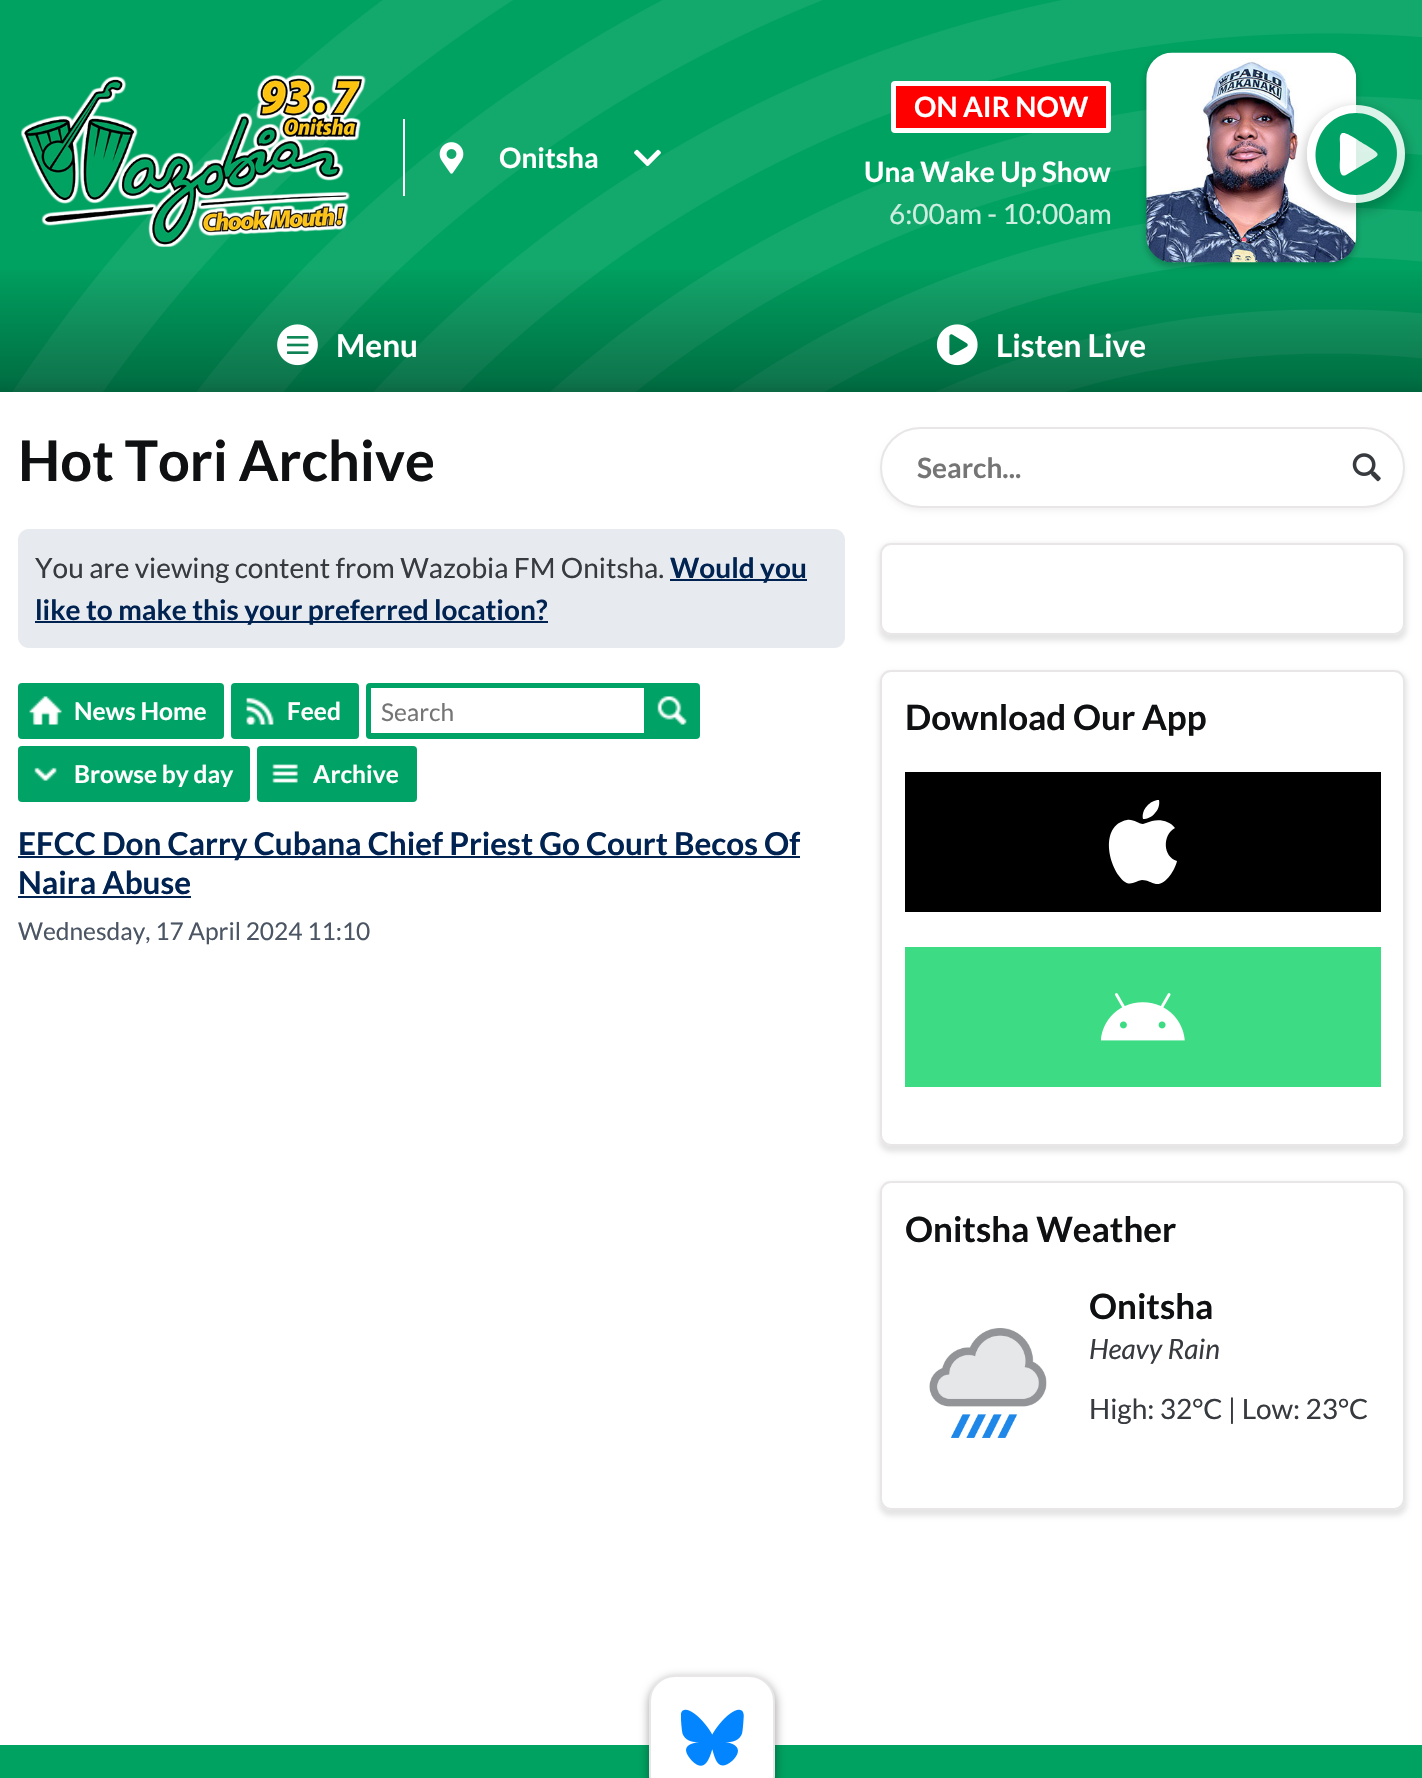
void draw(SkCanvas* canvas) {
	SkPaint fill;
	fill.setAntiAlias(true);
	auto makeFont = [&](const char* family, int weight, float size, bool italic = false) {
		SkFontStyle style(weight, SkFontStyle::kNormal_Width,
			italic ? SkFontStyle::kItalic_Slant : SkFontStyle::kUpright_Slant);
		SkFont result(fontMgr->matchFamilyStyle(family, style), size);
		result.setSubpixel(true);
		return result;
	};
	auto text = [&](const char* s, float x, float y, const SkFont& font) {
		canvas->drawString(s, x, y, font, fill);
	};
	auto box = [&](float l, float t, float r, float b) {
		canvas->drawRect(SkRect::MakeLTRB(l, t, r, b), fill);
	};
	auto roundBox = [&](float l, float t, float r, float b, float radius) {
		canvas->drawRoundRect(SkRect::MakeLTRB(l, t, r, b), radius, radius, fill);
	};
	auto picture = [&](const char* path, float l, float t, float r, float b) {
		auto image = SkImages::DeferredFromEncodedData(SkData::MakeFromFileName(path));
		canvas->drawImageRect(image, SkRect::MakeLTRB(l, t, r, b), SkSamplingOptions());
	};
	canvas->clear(0xFFFFFFFF);
	fill.setColor(0xFF00A261);
	box(0, 0, 1422, 392);
	picture("image0.png", 13, 0, 1422, 392);
	picture("image1.png", 21, 75, 366, 247);
	fill.setColor(0xFFFFFFFF);
	box(403, 119, 405, 196);
	picture("image2.png", 439, 142, 464, 174);
	picture("image3.png", 634, 149, 661, 166);
	{
		const SkColor colors[] = {0x00000000, 0x4D000000, 0x61000000};
		const float stops[] = {0, 0.89f, 1};
		const SkPoint ends[] = {{711, 262}, {711, 392}};
		fill.setShader(SkGradientShader::MakeLinear(ends, colors, stops, 3, SkTileMode::kClamp));
		fill.setAlpha(255);
	}
	box(0, 270, 1422, 392);
	fill.setShader(nullptr);
	fill.setColor(0x40000000);
	fill.setMaskFilter(SkMaskFilter::MakeBlur(kNormal_SkBlurStyle, 3.5f));
	canvas->drawRoundRect(SkRect::MakeLTRB(1146, 56, 1356, 266), 26, 26, fill);
	fill.setMaskFilter(nullptr);
	picture("image4.png", 1146, 52, 1357, 263);
	fill.setColor(0xFFFF0000);
	canvas->drawRoundRect(SkRect::MakeLTRB(893.5f, 83.5f, 1108.5f, 130.5f), 1.5f, 1.5f, fill);
	fill.setStyle(SkPaint::kStroke_Style);
	fill.setStrokeWidth(5);
	fill.setColor(0xFFFFFFFF);
	canvas->drawRoundRect(SkRect::MakeLTRB(893.5f, 83.5f, 1108.5f, 130.5f), 1.5f, 1.5f, fill);
	canvas->save();
	canvas->clipPath(SkPathBuilder(SkPathFillType::kEvenOdd).moveTo(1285, 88).lineTo(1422, 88).lineTo(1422, 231).lineTo(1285, 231).close().moveTo(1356, 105).cubicTo(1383, 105, 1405, 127, 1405, 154).cubicTo(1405, 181, 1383, 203, 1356, 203).cubicTo(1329, 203, 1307, 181, 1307, 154).cubicTo(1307, 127, 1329, 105, 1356, 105).close().detach(), true);
	fill.setStyle(SkPaint::kFill_Style);
	fill.setColor(0x33000000);
	fill.setMaskFilter(SkMaskFilter::MakeBlur(kNormal_SkBlurStyle, 6));
	canvas->drawRoundRect(SkRect::MakeLTRB(1304, 107, 1409, 212), 52.5f, 52.5f, fill);
	fill.setMaskFilter(nullptr);
	canvas->restore();
	fill.setColor(0xD9FFFFFF);
	canvas->drawCircle(1356, 154, 49, fill);
	fill.setColor(0xFF00A365);
	canvas->drawPath(SkPathBuilder().moveTo(1356, 195).cubicTo(1395, 195, 1412, 145, 1381, 122).cubicTo(1374, 116, 1365, 113, 1356, 113).cubicTo(1318, 113, 1301, 163, 1331, 186).cubicTo(1339, 192, 1347, 195, 1356, 195).close().moveTo(1346, 175).cubicTo(1338, 179, 1340, 161, 1340, 160).lineTo(1340, 143).cubicTo(1340, 140, 1339, 135, 1342, 133).lineTo(1343, 133).cubicTo(1347, 132, 1362, 143, 1366, 145).cubicTo(1381, 155, 1382, 154, 1366, 163).close().detach(), fill);
	picture("image5.png", 277, 324, 318, 366);
	picture("image6.png", 936, 324, 978, 366);
	fill.setColor(0xFFE7EAEF);
	roundBox(18, 529, 845, 648, 11);
	fill.setColor(0xFF002351);
	box(670, 579, 807, 581);
	box(35, 621, 548, 623);
	fill.setColor(0xFF00A365);
	roundBox(18, 683, 224, 739, 4);
	picture("image7.png", 29, 696, 62, 725);
	roundBox(231, 683, 359, 739, 4);
	picture("image8.png", 246, 697, 274, 725);
	roundBox(366, 683, 700, 739, 4);
	fill.setColor(0xFFFFFFFF);
	box(371, 688, 644, 733);
	picture("image9.png", 657, 696, 687, 725);
	fill.setColor(0xFF00A365);
	roundBox(18, 746, 250, 802, 4);
	picture("image10.png", 34, 767, 57, 781);
	roundBox(257, 746, 417, 802, 4);
	picture("image11.png", 272, 764, 298, 783);
	fill.setColor(0xFF002351);
	box(18, 856, 800, 858);
	box(18, 896, 191, 898);
	fill.setColor(0x0D000000);
	fill.setMaskFilter(SkMaskFilter::MakeBlur(kNormal_SkBlurStyle, 2.5f));
	canvas->drawRoundRect(SkRect::MakeLTRB(880, 431, 1405, 511), 40, 40, fill);
	fill.setMaskFilter(nullptr);
	fill.setColor(0xFFFFFFFF);
	canvas->drawRoundRect(SkRect::MakeLTRB(881, 428, 1404, 507), 39.5f, 39.5f, fill);
	fill.setStyle(SkPaint::kStroke_Style);
	fill.setStrokeWidth(2);
	fill.setColor(0xFFE8E6E6);
	canvas->drawRoundRect(SkRect::MakeLTRB(881, 428, 1404, 507), 39.5f, 39.5f, fill);
	picture("image12.png", 1352, 453, 1381, 482);
	canvas->save();
	canvas->clipPath(SkPathBuilder(SkPathFillType::kEvenOdd).moveTo(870, 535).lineTo(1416, 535).lineTo(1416, 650).lineTo(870, 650).close().moveTo(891, 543).lineTo(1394, 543).cubicTo(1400, 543, 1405, 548, 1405, 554).lineTo(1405, 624).cubicTo(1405, 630, 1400, 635, 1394, 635).lineTo(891, 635).cubicTo(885, 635, 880, 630, 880, 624).lineTo(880, 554).cubicTo(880, 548, 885, 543, 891, 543).close().detach(), true);
	fill.setStyle(SkPaint::kFill_Style);
	fill.setColor(0x1A000000);
	fill.setMaskFilter(SkMaskFilter::MakeBlur(kNormal_SkBlurStyle, 2.5f));
	canvas->drawRoundRect(SkRect::MakeLTRB(879, 544, 1407, 641), 12, 12, fill);
	fill.setMaskFilter(nullptr);
	canvas->restore();
	fill.setStyle(SkPaint::kStroke_Style);
	fill.setColor(0xFFE8E6E6);
	canvas->drawRoundRect(SkRect::MakeLTRB(881, 544, 1404, 634), 10, 10, fill);
	canvas->save();
	canvas->clipPath(SkPathBuilder(SkPathFillType::kEvenOdd).moveTo(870, 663).lineTo(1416, 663).lineTo(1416, 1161).lineTo(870, 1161).close().moveTo(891, 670).lineTo(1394, 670).cubicTo(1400, 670, 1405, 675, 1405, 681).lineTo(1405, 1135).cubicTo(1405, 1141, 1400, 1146, 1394, 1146).lineTo(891, 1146).cubicTo(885, 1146, 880, 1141, 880, 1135).lineTo(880, 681).cubicTo(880, 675, 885, 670, 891, 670).close().detach(), true);
	fill.setStyle(SkPaint::kFill_Style);
	fill.setColor(0x1A000000);
	fill.setMaskFilter(SkMaskFilter::MakeBlur(kNormal_SkBlurStyle, 2.5f));
	canvas->drawRoundRect(SkRect::MakeLTRB(879, 672, 1407, 1152), 12, 12, fill);
	fill.setMaskFilter(nullptr);
	canvas->restore();
	fill.setStyle(SkPaint::kStroke_Style);
	fill.setColor(0xFFE8E6E6);
	canvas->drawRoundRect(SkRect::MakeLTRB(881, 671, 1404, 1145), 10, 10, fill);
	fill.setStyle(SkPaint::kFill_Style);
	fill.setColor(0xFF000000);
	box(905, 772, 1381, 912);
	fill.setColor(0xFFFFFFFF);
	canvas->drawPath(SkPathBuilder().moveTo(1143, 824).cubicTo(1138, 824, 1134, 819, 1127, 820).cubicTo(1099, 825, 1108, 869, 1125, 882).cubicTo(1131, 886, 1136, 881, 1142, 880).cubicTo(1148, 880, 1151, 883, 1156, 884).cubicTo(1166, 885, 1175, 870, 1177, 861).cubicTo(1163, 857, 1162, 835, 1175, 828).cubicTo(1170, 821, 1160, 819, 1152, 821).close().moveTo(1155, 813).cubicTo(1158, 810, 1160, 805, 1159, 800).cubicTo(1150, 800, 1141, 810, 1143, 819).cubicTo(1147, 819, 1152, 817, 1155, 813).detach(), fill);
	fill.setColor(0xFF3DDC84);
	box(905, 947, 1381, 1087);
	picture("image13.png", 1101, 993, 1185, 1041);
	canvas->save();
	canvas->clipPath(SkPathBuilder(SkPathFillType::kEvenOdd).moveTo(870, 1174).lineTo(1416, 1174).lineTo(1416, 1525).lineTo(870, 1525).close().moveTo(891, 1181).lineTo(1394, 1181).cubicTo(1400, 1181, 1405, 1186, 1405, 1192).lineTo(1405, 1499).cubicTo(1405, 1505, 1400, 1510, 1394, 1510).lineTo(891, 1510).cubicTo(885, 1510, 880, 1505, 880, 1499).lineTo(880, 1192).cubicTo(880, 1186, 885, 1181, 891, 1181).close().detach(), true);
	fill.setColor(0x1A000000);
	fill.setMaskFilter(SkMaskFilter::MakeBlur(kNormal_SkBlurStyle, 2.5f));
	canvas->drawRoundRect(SkRect::MakeLTRB(879, 1183, 1407, 1516), 12, 12, fill);
	fill.setMaskFilter(nullptr);
	canvas->restore();
	fill.setStyle(SkPaint::kStroke_Style);
	fill.setColor(0xFFE8E6E6);
	canvas->drawRoundRect(SkRect::MakeLTRB(881, 1182, 1404, 1509), 10, 10, fill);
	picture("image14.png", 929, 1328, 1047, 1438);
	fill.setStyle(SkPaint::kFill_Style);
	fill.setColor(0xFF00A261);
	box(0, 1745, 1422, 1778);
	fill.setColor(0x4D000000);
	fill.setMaskFilter(SkMaskFilter::MakeBlur(kNormal_SkBlurStyle, 4.5f));
	canvas->drawRoundRect(SkRect::MakeLTRB(648, 1677, 777, 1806), 28, 28, fill);
	fill.setMaskFilter(nullptr);
	fill.setColor(0xFFFFFFFF);
	canvas->drawRoundRect(SkRect::MakeLTRB(650, 1676, 774, 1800), 25, 25, fill);
	fill.setStyle(SkPaint::kStroke_Style);
	fill.setColor(0xFFE8E6E6);
	canvas->drawRoundRect(SkRect::MakeLTRB(650, 1676, 774, 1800), 25, 25, fill);
	picture("image15.png", 681, 1709, 744, 1766);
	auto font1 = makeFont("Lato", 700, 28);
	fill.setStyle(SkPaint::kFill_Style);
	fill.setColor(0xFFFFFFFF);
	text("Onitsha", 499, 168, font1);
	text("ON AIR NOW", 914, 117, font1);
	text("Una Wake Up Show", 864, 182, font1);
	auto font2 = makeFont("Lato", 400, 28);
	fill.setColor(0xFFCDEDE0);
	text("6:00am - 10:00am", 889, 224, font2);
	auto font3 = makeFont("Lato", 700, 31.5f);
	fill.setColor(0xFFFFFFFF);
	text("Menu", 336, 357, font3);
	text("Listen Live", 996, 357, font3);
	auto font4 = makeFont("Lato", 700, 56);
	fill.setColor(0xFF0F1011);
	text("Hot Tori Archive", 18, 481, font4);
	fill.setColor(0xFF373A3E);
	text("You are viewing content from Wazobia FM Onitsha.", 35, 578, font2);
	fill.setColor(0xFF002351);
	text("Would you", 670, 578, font1);
	text("like to make this your preferred location?", 35, 620, font1);
	auto font5 = makeFont("Lato", 700, 24.5f);
	fill.setColor(0xFFFFFFFF);
	text("News Home", 74, 720, font5);
	text("Feed", 287, 720, font5);
	auto font6 = makeFont("Lato", 400, 24.5f);
	fill.setColor(0xFF757575);
	text("Search", 381, 721, font6);
	fill.setColor(0xFFFFFFFF);
	text("Browse by day", 74, 783, font5);
	text("Archive", 313, 783, font5);
	fill.setColor(0xFF002351);
	text("EFCC Don Carry Cubana Chief Priest Go Court Becos Of", 18, 855, font3);
	text("Naira Abuse", 18, 894, font3);
	fill.setColor(0xFF4B5563);
	text("Wednesday, 17 April 2024 11:10", 18, 940, font6);
	fill.setColor(0xFF757575);
	text("Search...", 917, 478, font1);
	auto font7 = makeFont("Lato", 700, 35);
	fill.setColor(0xFF0F1011);
	text("Download Our App", 905, 730, font7);
	text("Onitsha Weather", 905, 1242, font7);
	text("Onitsha", 1089, 1319, font7);
	auto font8 = makeFont("Lato", 400, 28, true);
	fill.setColor(0xFF373A3E);
	text("Heavy Rain", 1089, 1359, font8);
	text("High: 32°C | Low: 23°C", 1089, 1419, font2);
}
